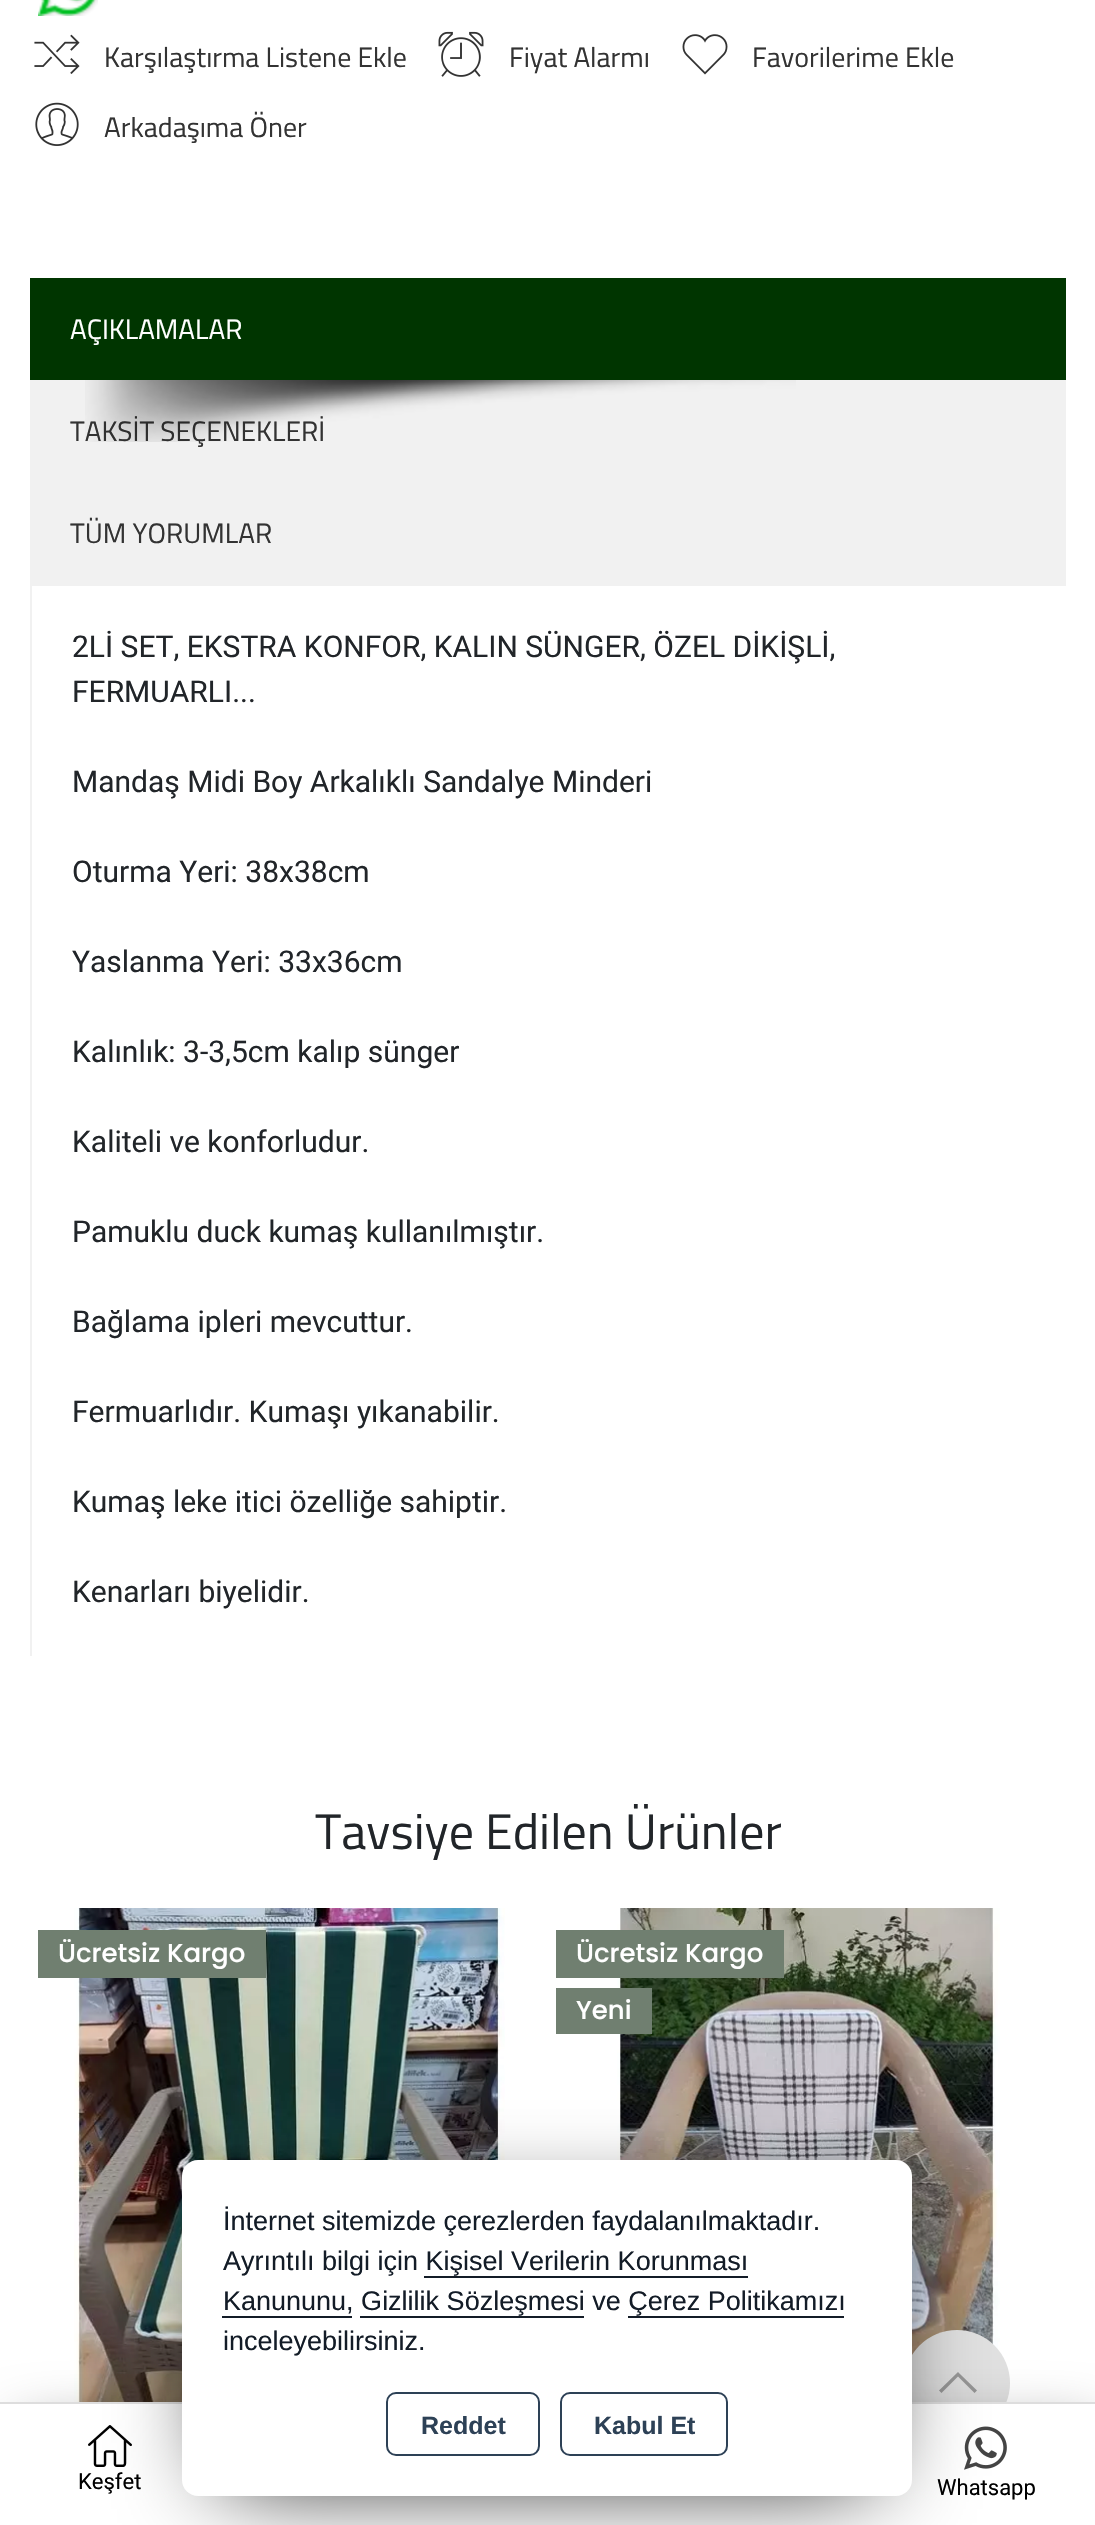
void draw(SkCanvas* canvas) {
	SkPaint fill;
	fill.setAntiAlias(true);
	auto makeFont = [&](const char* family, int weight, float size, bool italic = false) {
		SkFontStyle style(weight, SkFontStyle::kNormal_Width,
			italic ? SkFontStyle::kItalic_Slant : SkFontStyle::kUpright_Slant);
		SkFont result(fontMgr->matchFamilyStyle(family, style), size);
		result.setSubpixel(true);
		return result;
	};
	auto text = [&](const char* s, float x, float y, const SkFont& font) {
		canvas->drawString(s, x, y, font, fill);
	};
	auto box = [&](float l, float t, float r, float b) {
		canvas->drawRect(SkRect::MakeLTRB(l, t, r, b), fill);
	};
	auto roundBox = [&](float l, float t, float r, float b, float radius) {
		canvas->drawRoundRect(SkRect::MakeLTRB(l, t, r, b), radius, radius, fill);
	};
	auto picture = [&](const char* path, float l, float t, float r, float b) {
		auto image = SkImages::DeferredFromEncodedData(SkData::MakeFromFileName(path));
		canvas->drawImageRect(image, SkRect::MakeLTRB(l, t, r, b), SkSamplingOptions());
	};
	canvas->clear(0xFFFFFFFF);
	picture("image0.png", 38, 0, 98, 16);
	picture("image1.png", 34, 34, 80, 74);
	picture("image2.png", 438, 31, 484, 77);
	picture("image3.png", 682, 34, 728, 75);
	picture("image4.png", 35, 102, 79, 146);
	fill.setColor(0xFF003500);
	box(30, 278, 1066, 380);
	fill.setColor(0xFFF1F1F1);
	box(30, 380, 1066, 586);
	box(30, 584, 32, 1656);
	picture("image6.png", 74, 1908, 505, 2402);
	fill.setColor(0xFF707F70);
	box(38, 1930, 266, 1978);
	picture("image7.png", 617, 1908, 1000, 2355);
	box(556, 1930, 784, 1978);
	box(556, 1988, 652, 2034);
	fill.setColor(0xFFE0E0E0);
	canvas->drawCircle(957, 2383, 53, fill);
	fill.setColor(0xFF989898);
	canvas->drawPath(SkPathBuilder().moveTo(960.5f, 2374.5f).lineTo(958, 2372).lineTo(939, 2390.5f).lineTo(941.5f, 2393).lineTo(958, 2376.5f).lineTo(974.5f, 2393).lineTo(977, 2390.5f).close().detach(), fill);
	fill.setColor(0x80000000);
	fill.setMaskFilter(SkMaskFilter::MakeBlur(kNormal_SkBlurStyle, 30));
	canvas->drawRect(SkRect::MakeLTRB(20, 2432, 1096, 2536), fill);
	fill.setMaskFilter(nullptr);
	fill.setColor(0xFFFFFFFF);
	box(0, 2404, 1095, 2525);
	fill.setColor(0xFFDDDDDD);
	box(0, 2402, 1095, 2404);
	picture("image8.png", 88, 2425, 132, 2467);
	picture("image9.png", 964, 2426, 1007, 2470);
	fill.setColor(0xFF000000);
	fill.setMaskFilter(SkMaskFilter::MakeBlur(kNormal_SkBlurStyle, 50));
	canvas->drawRect(SkRect::MakeLTRB(222, 2220, 872, 2476), fill);
	fill.setMaskFilter(nullptr);
	fill.setColor(0xFFFFFFFF);
	roundBox(182, 2160, 912, 2496, 16);
	fill.setColor(0xFF131C27);
	box(424, 2276, 748, 2278);
	box(222, 2316, 352, 2318);
	box(360, 2316, 584, 2318);
	box(628, 2316, 844, 2318);
	fill.setStyle(SkPaint::kStroke_Style);
	fill.setStrokeWidth(2);
	fill.setColor(0xFF2D4156);
	canvas->drawRoundRect(SkRect::MakeLTRB(387, 2393, 539, 2455), 9, 9, fill);
	canvas->drawRoundRect(SkRect::MakeLTRB(561, 2393, 727, 2455), 9, 9, fill);
	auto font1 = makeFont("Titillium Web", 400, 28);
	fill.setStyle(SkPaint::kFill_Style);
	fill.setColor(0xFF333333);
	text("Karşılaştırma Listene Ekle", 104, 67, font1);
	text("Fiyat Alarmı", 509, 67, font1);
	text("Favorilerime Ekle", 752, 67, font1);
	text("Arkadaşıma Öner", 104, 137, font1);
	fill.setColor(0xFFFFFFFF);
	text("AÇIKLAMALAR", 70, 339, font1);
	fill.setColor(0xFF333333);
	text("TAKSİT SEÇENEKLERİ", 70, 441, font1);
	picture("image5.png", 85, 380, 796, 442);
	text("TÜM YORUMLAR", 70, 543, font1);
	auto font2 = makeFont("Roboto", 400, 30);
	fill.setColor(0xFF212529);
	text("2Lİ SET, EKSTRA KONFOR, KALIN SÜNGER, ÖZEL DİKİŞLİ,", 72, 657, font2);
	text("FERMUARLI...", 72, 702, font2);
	text("Mandaş Midi Boy Arkalıklı Sandalye Minderi", 72, 792, font2);
	text("Oturma Yeri: 38x38cm", 72, 882, font2);
	text("Yaslanma Yeri: 33x36cm", 72, 972, font2);
	text("Kalınlık: 3-3,5cm kalıp sünger", 72, 1062, font2);
	text("Kaliteli ve konforludur.", 72, 1152, font2);
	text("Pamuklu duck kumaş kullanılmıştır.", 72, 1242, font2);
	text("Bağlama ipleri mevcuttur.", 72, 1332, font2);
	text("Fermuarlıdır. Kumaşı yıkanabilir.", 72, 1422, font2);
	text("Kumaş leke itici özelliğe sahiptir.", 72, 1512, font2);
	text("Kenarları biyelidir.", 72, 1602, font2);
	auto font3 = makeFont("Titillium Web", 400, 50);
	text("Tavsiye Edilen Ürünler", 315, 1849, font3);
	auto font4 = makeFont("Poppins", 500, 26);
	fill.setColor(0xFFFFFFFF);
	text("Ücretsiz Kargo", 58, 1962, font4);
	text("Ücretsiz Kargo", 576, 1962, font4);
	text("Yeni", 576, 2019, font4);
	auto font5 = makeFont("Roboto", 400, 22);
	fill.setColor(0xFF000000);
	text("Keşfet", 78, 2489, font5);
	text("Whatsapp", 937, 2495, font5);
	auto font6 = makeFont("Liberation Sans", 400, 27);
	fill.setColor(0xFF131C27);
	text("İnternet sitemizde çerezlerden faydalanılmaktadır.", 223, 2230, font6);
	text("Ayrıntılı bilgi için Kişisel Verilerin Korunması", 223, 2270, font6);
	text("Kanununu, Gizlilik Sözleşmesi ve Çerez Politikamızı", 223, 2310, font6);
	text("inceleyebilirsiniz.", 223, 2350, font6);
	auto font7 = makeFont("Liberation Sans", 700, 25);
	fill.setColor(0xFF2D4156);
	text("Reddet", 421, 2434, font7);
	text("Kabul Et", 594, 2434, font7);
}
